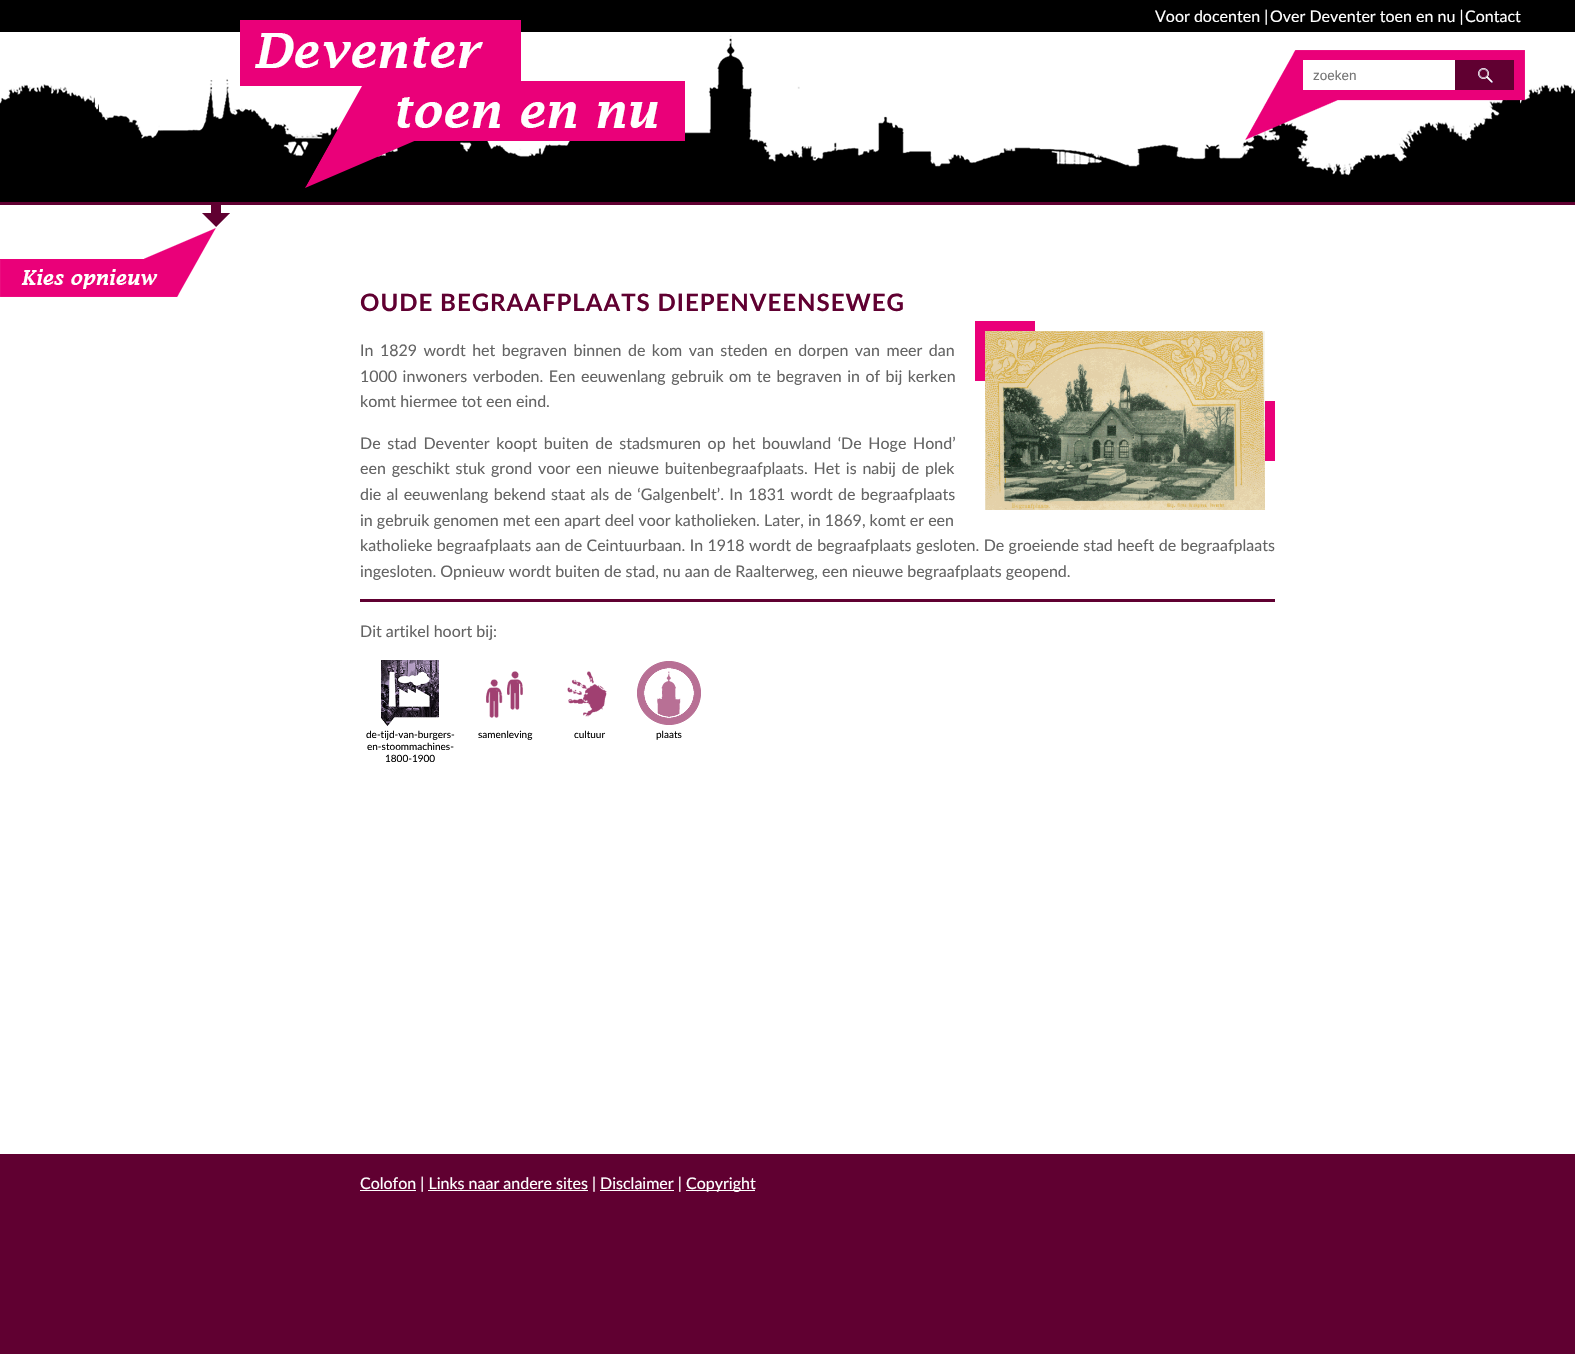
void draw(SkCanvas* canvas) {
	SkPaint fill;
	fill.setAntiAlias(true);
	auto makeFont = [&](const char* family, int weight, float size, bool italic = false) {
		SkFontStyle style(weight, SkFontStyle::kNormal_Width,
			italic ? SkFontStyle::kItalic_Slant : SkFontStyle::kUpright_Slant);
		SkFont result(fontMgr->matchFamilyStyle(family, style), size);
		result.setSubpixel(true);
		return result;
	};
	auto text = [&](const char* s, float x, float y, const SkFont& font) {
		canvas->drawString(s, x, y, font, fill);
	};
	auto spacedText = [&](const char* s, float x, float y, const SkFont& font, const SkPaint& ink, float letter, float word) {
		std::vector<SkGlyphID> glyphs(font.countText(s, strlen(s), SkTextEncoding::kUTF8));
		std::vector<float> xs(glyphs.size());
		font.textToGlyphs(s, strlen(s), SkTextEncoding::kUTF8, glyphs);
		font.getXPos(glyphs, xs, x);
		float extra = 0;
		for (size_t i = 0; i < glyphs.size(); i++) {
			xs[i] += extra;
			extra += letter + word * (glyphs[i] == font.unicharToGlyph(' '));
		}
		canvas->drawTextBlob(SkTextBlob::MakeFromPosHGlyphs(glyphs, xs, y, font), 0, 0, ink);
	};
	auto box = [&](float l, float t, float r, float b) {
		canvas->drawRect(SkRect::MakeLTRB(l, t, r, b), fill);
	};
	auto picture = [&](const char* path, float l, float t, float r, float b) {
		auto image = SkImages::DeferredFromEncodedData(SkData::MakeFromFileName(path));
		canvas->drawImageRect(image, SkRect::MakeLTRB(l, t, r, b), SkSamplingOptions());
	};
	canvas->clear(0xFFFFFFFF);
	fill.setColor(0xFF000000);
	box(0, 0, 1575, 32);
	picture("image1.png", 0, 35, 1575, 202);
	picture("image0.png", 240, 20, 685, 188);
	picture("image2.png", 1245, 50, 1525, 140);
	fill.setColor(0xFFFFFFFF);
	box(1303, 60, 1455, 90);
	picture("image3.png", 1455, 60, 1514, 90);
	fill.setColor(0xFF600031);
	box(0, 202, 1575, 205);
	picture("image4.png", 0, 205, 230, 297);
	picture("image5.png", 975, 321, 1275, 461);
	picture("image6.png", 985, 331, 1265, 510);
	box(360, 599, 1275, 602);
	picture("image7.png", 381, 660, 439, 726);
	picture("image8.png", 486, 671, 523, 718);
	picture("image9.png", 567, 671, 607, 717);
	picture("image10.png", 637, 661, 701, 725);
	box(0, 1154, 1575, 1354);
	fill.setColor(0xFFFFFFFF);
	box(360, 1190, 416, 1191);
	box(686, 1190, 755, 1191);
	box(428, 1190, 588, 1191);
	box(600, 1190, 674, 1191);
	auto font1 = makeFont("Lato", 400, 16);
	text("Voor docenten |", 1155, 22, font1);
	text("Over Deventer toen en nu |", 1270, 22, font1);
	text("Contact", 1465, 22, font1);
	auto font2 = makeFont("Liberation Sans", 400, 13.5f);
	fill.setColor(0xFF757575);
	text("zoeken", 1313, 80, font2);
	auto font3 = makeFont("Lato", 700, 24);
	fill.setColor(0xFF600031);
	spacedText("OUDE BEGRAAFPLAATS DIEPENVEENSEWEG", 360, 311, font3, fill, 1, 0);
	fill.setColor(0xFF646464);
	spacedText("In 1829 wordt het begraven binnen de kom van steden en dorpen van meer dan", 360, 356, font1, fill, 0, 2.4f);
	spacedText("1000 inwoners verboden. Een eeuwenlang gebruik om te begraven in of bij kerken", 360, 382, font1, fill, 0, 1.4f);
	text("komt hiermee tot een eind.", 360, 407, font1);
	spacedText("De stad Deventer koopt buiten de stadsmuren op het bouwland ‘De Hoge Hond’", 360, 449, font1, fill, 0, 2.5f);
	spacedText("een geschikt stuk grond voor een nieuwe buitenbegraafplaats. Het is nabij de plek", 360, 474, font1, fill, 0, 1.75f);
	spacedText("die al eeuwenlang bekend staat als de ‘Galgenbelt’. In 1831 wordt de begraafplaats", 360, 500, font1, fill, 0, 1.25f);
	text("in gebruik genomen met een apart deel voor katholieken. Later, in 1869, komt er een", 360, 526, font1);
	spacedText("katholieke begraafplaats aan de Ceintuurbaan. In 1918 wordt de begraafplaats gesloten. De groeiende stad heeft de begraafplaats", 360, 551, font1, fill, 0, 0.25f);
	text("ingesloten. Opnieuw wordt buiten de stad, nu aan de Raalterweg, een nieuwe begraafplaats geopend.", 360, 577, font1);
	text("Dit artikel hoort bij:", 360, 637, font1);
	auto font4 = makeFont("Lato", 400, 10);
	fill.setColor(0xFF000000);
	text("de-tijd-van-burgers-", 366, 738, font4);
	text("en-stoommachines-", 367, 750, font4);
	text("1800-1900", 385, 762, font4);
	text("samenleving", 478, 738, font4);
	text("cultuur", 574, 738, font4);
	text("plaats", 656, 738, font4);
	fill.setColor(0xFFFFFFFF);
	text("Colofon | Links naar andere sites | Disclaimer |", 360, 1189, font1);
	text("Copyright", 686, 1189, font1);
}
